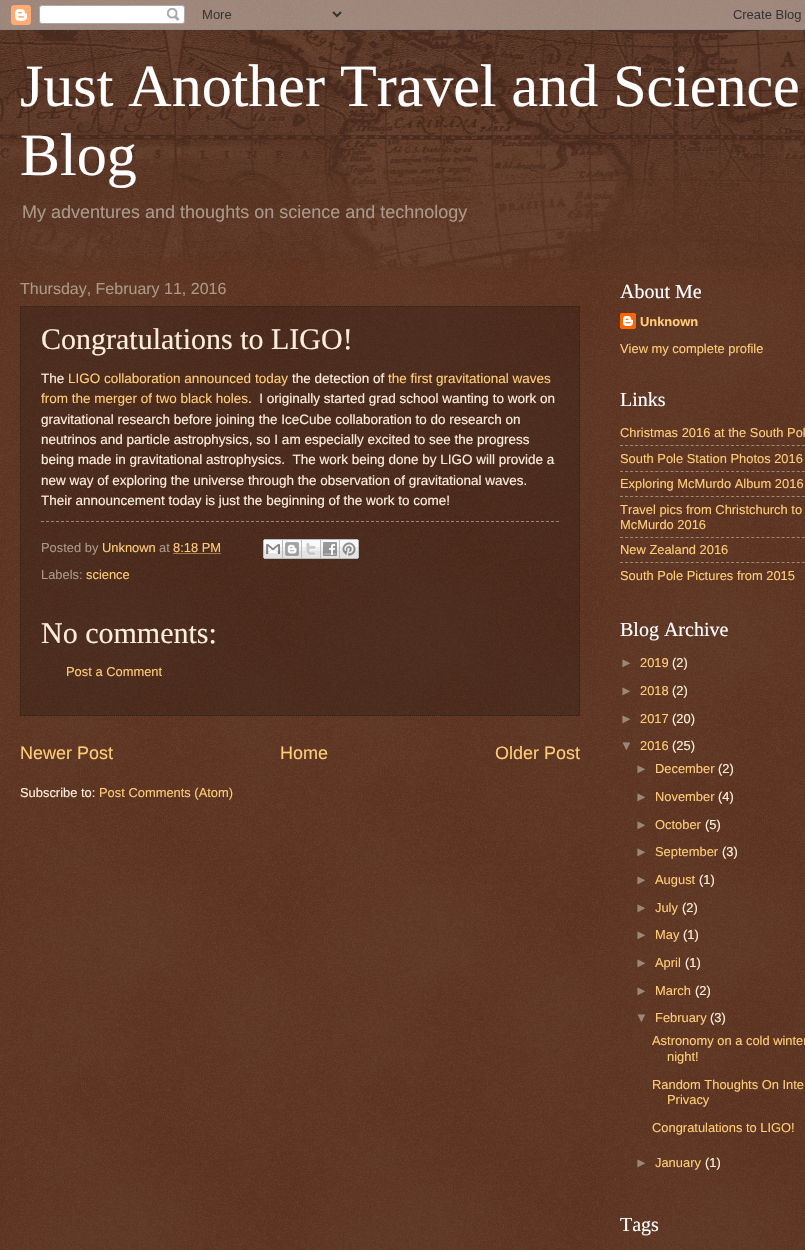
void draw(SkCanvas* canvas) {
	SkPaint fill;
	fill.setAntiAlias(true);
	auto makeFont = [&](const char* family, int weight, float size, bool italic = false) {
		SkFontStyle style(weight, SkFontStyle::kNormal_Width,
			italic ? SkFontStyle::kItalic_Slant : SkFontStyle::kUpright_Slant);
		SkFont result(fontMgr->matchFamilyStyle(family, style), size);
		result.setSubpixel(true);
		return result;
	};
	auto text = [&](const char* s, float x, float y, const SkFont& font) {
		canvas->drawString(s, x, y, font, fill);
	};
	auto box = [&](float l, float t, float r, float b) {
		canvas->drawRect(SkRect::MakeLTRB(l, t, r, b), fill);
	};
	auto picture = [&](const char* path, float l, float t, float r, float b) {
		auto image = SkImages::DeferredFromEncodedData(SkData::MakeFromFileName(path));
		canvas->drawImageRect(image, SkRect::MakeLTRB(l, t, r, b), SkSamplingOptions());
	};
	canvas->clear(0xFF441500);
	picture("image0.png", 0, 0, 805, 1250);
	picture("image1.png", 0, 0, 805, 30);
	picture("image2.png", 0, 30, 805, 270);
	fill.setColor(0x33000000);
	box(20, 306, 580, 716);
	fill.setStyle(SkPaint::kStroke_Style);
	fill.setStrokeWidth(1);
	fill.setColor(0xFF332211);
	fill.setPathEffect(SkDashPathEffect::Make({{1, 1}}, 0));
	canvas->drawPath(SkPathBuilder().moveTo(20, 306.5f).lineTo(580, 306.5f).detach(), fill);
	fill.setPathEffect(nullptr);
	fill.setPathEffect(SkDashPathEffect::Make({{1, 1}}, 0));
	canvas->drawPath(SkPathBuilder().moveTo(579.5f, 306).lineTo(579.5f, 716).detach(), fill);
	fill.setPathEffect(nullptr);
	fill.setPathEffect(SkDashPathEffect::Make({{1, 1}}, 0));
	canvas->drawPath(SkPathBuilder().moveTo(20, 715.5f).lineTo(580, 715.5f).detach(), fill);
	fill.setPathEffect(nullptr);
	fill.setPathEffect(SkDashPathEffect::Make({{1, 1}}, 0));
	canvas->drawPath(SkPathBuilder().moveTo(20.5f, 306).lineTo(20.5f, 716).detach(), fill);
	fill.setPathEffect(nullptr);
	fill.setColor(0xFF998877);
	fill.setPathEffect(SkDashPathEffect::Make({{3, 2}}, 0));
	canvas->drawPath(SkPathBuilder().moveTo(41, 521.5f).lineTo(559, 521.5f).detach(), fill);
	fill.setPathEffect(nullptr);
	fill.setColor(0xFFFFCC77);
	fill.setPathEffect(SkDashPathEffect::Make({{1, 1}}, 0));
	canvas->drawPath(SkPathBuilder().moveTo(173.5f, 553.5f).lineTo(221.5f, 553.5f).detach(), fill);
	fill.setPathEffect(nullptr);
	picture("image3.png", 263, 539, 283, 559);
	picture("image4.png", 283, 539, 302, 559);
	picture("image5.png", 302, 539, 321, 559);
	picture("image6.png", 321, 539, 340, 559);
	picture("image7.png", 340, 539, 359, 559);
	picture("image8.png", 620, 313, 636, 329);
	fill.setColor(0xFF998877);
	fill.setPathEffect(SkDashPathEffect::Make({{3, 2.05f}}, 0));
	canvas->drawPath(SkPathBuilder().moveTo(620, 445.5f).lineTo(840, 445.5f).detach(), fill);
	fill.setPathEffect(nullptr);
	fill.setPathEffect(SkDashPathEffect::Make({{3, 2.05f}}, 0));
	canvas->drawPath(SkPathBuilder().moveTo(620, 471.5f).lineTo(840, 471.5f).detach(), fill);
	fill.setPathEffect(nullptr);
	fill.setPathEffect(SkDashPathEffect::Make({{3, 2.05f}}, 0));
	canvas->drawPath(SkPathBuilder().moveTo(620, 496.5f).lineTo(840, 496.5f).detach(), fill);
	fill.setPathEffect(nullptr);
	fill.setPathEffect(SkDashPathEffect::Make({{3, 2.05f}}, 0));
	canvas->drawPath(SkPathBuilder().moveTo(620, 537.5f).lineTo(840, 537.5f).detach(), fill);
	fill.setPathEffect(nullptr);
	fill.setPathEffect(SkDashPathEffect::Make({{3, 2.05f}}, 0));
	canvas->drawPath(SkPathBuilder().moveTo(620, 562.5f).lineTo(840, 562.5f).detach(), fill);
	fill.setPathEffect(nullptr);
	auto font1 = makeFont("Liberation Serif", 400, 60);
	fill.setStyle(SkPaint::kFill_Style);
	fill.setColor(0xFFFFFFFF);
	text("Just Another Travel and Science", 20, 106, font1);
	text("Blog", 20, 175, font1);
	auto font2 = makeFont("Liberation Sans", 400, 18);
	fill.setColor(0xFFAA9988);
	text("My adventures and thoughts on science and technology", 22, 218, font2);
	auto font3 = makeFont("Liberation Sans", 400, 16);
	text("Thursday, February 11, 2016", 20, 294, font3);
	auto font4 = makeFont("Liberation Serif", 400, 30);
	fill.setColor(0xFFFFEEDD);
	text("Congratulations to LIGO!", 41, 349, font4);
	auto font5 = makeFont("Liberation Sans", 400, 13.5f);
	text("The", 41, 383, font5);
	fill.setColor(0xFFFFCC77);
	text("LIGO collaboration announced today", 68, 383, font5);
	fill.setColor(0xFFFFEEDD);
	text("the detection of", 292, 383, font5);
	fill.setColor(0xFFFFCC77);
	text("the first gravitational waves", 388, 383, font5);
	text("from the merger of two black holes", 41, 403, font5);
	fill.setColor(0xFFFFEEDD);
	text(".  I originally started grad school wanting to work on", 248, 403, font5);
	text("gravitational research before joining the IceCube collaboration to do research on", 41, 424, font5);
	text("neutrinos and particle astrophysics, so I am especially excited to see the progress", 41, 444, font5);
	text("being made in gravitational astrophysics.  The work being done by LIGO will provide a", 41, 464, font5);
	text("new way of exploring the universe through the observation of gravitational waves.", 41, 485, font5);
	text("Their announcement today is just the beginning of the work to come!", 41, 505, font5);
	auto font6 = makeFont("Liberation Sans", 400, 12.9f);
	fill.setColor(0xFFAA9988);
	text("Posted by", 41, 552, font6);
	fill.setColor(0xFFFFCC77);
	text("Unknown", 102, 552, font6);
	fill.setColor(0xFFAA9988);
	text("at", 159, 552, font6);
	fill.setColor(0xFFFFCC77);
	text("8:18 PM", 173, 552, font6);
	fill.setColor(0xFFAA9988);
	text("Labels:", 41, 579, font6);
	fill.setColor(0xFFFFCC77);
	text("science", 86, 579, font6);
	fill.setColor(0xFFFFEEDD);
	text("No comments:", 41, 643, font4);
	fill.setColor(0xFFFFCC77);
	text("Post a Comment", 66, 676, font6);
	text("Newer Post", 20, 759, font2);
	text("Home", 280, 759, font2);
	text("Older Post", 495, 759, font2);
	fill.setColor(0xFFFFEEDD);
	text("Subscribe to:", 20, 797, font6);
	fill.setColor(0xFFFFCC77);
	text("Post Comments (Atom)", 99, 797, font6);
	auto font7 = makeFont("Liberation Serif", 400, 20);
	fill.setColor(0xFFFFFFFF);
	text("About Me", 620, 298, font7);
	auto font8 = makeFont("Liberation Sans", 700, 12.9f);
	fill.setColor(0xFFFFCC77);
	text("Unknown", 640, 326, font8);
	text("View my complete profile", 620, 353, font6);
	fill.setColor(0xFFFFFFFF);
	text("Links", 620, 406, font7);
	fill.setColor(0xFFFFCC77);
	text("Christmas 2016 at the South Pol", 620, 437, font6);
	text("South Pole Station Photos 2016", 620, 463, font6);
	text("Exploring McMurdo Album 2016", 620, 488, font6);
	text("Travel pics from Christchurch to", 620, 514, font6);
	text("McMurdo 2016", 620, 529, font6);
	text("New Zealand 2016", 620, 554, font6);
	text("South Pole Pictures from 2015", 620, 580, font6);
	fill.setColor(0xFFFFFFFF);
	text("Blog Archive", 620, 636, font7);
	fill.setColor(0xFF998877);
	text("►", 620, 667, font6);
	fill.setColor(0xFFFFCC77);
	text("2019", 640, 667, font6);
	fill.setColor(0xFFFFEEDD);
	text("(2)", 672, 667, font6);
	fill.setColor(0xFF998877);
	text("►", 620, 695, font6);
	fill.setColor(0xFFFFCC77);
	text("2018", 640, 695, font6);
	fill.setColor(0xFFFFEEDD);
	text("(2)", 672, 695, font6);
	fill.setColor(0xFF998877);
	text("►", 620, 723, font6);
	fill.setColor(0xFFFFCC77);
	text("2017", 640, 723, font6);
	fill.setColor(0xFFFFEEDD);
	text("(20)", 672, 723, font6);
	fill.setColor(0xFF998877);
	text("▼", 620, 750, font6);
	fill.setColor(0xFFFFCC77);
	text("2016", 640, 750, font6);
	fill.setColor(0xFFFFEEDD);
	text("(25)", 672, 750, font6);
	fill.setColor(0xFF998877);
	text("►", 635, 773, font6);
	fill.setColor(0xFFFFCC77);
	text("December", 655, 773, font6);
	fill.setColor(0xFFFFEEDD);
	text("(2)", 718, 773, font6);
	fill.setColor(0xFF998877);
	text("►", 635, 801, font6);
	fill.setColor(0xFFFFCC77);
	text("November", 655, 801, font6);
	fill.setColor(0xFFFFEEDD);
	text("(4)", 718, 801, font6);
	fill.setColor(0xFF998877);
	text("►", 635, 829, font6);
	fill.setColor(0xFFFFCC77);
	text("October", 655, 829, font6);
	fill.setColor(0xFFFFEEDD);
	text("(5)", 705, 829, font6);
	fill.setColor(0xFF998877);
	text("►", 635, 856, font6);
	fill.setColor(0xFFFFCC77);
	text("September", 655, 856, font6);
	fill.setColor(0xFFFFEEDD);
	text("(3)", 722, 856, font6);
	fill.setColor(0xFF998877);
	text("►", 635, 884, font6);
	fill.setColor(0xFFFFCC77);
	text("August", 655, 884, font6);
	fill.setColor(0xFFFFEEDD);
	text("(1)", 699, 884, font6);
	fill.setColor(0xFF998877);
	text("►", 635, 912, font6);
	fill.setColor(0xFFFFCC77);
	text("July", 655, 912, font6);
	fill.setColor(0xFFFFEEDD);
	text("(2)", 682, 912, font6);
	fill.setColor(0xFF998877);
	text("►", 635, 939, font6);
	fill.setColor(0xFFFFCC77);
	text("May", 655, 939, font6);
	fill.setColor(0xFFFFEEDD);
	text("(1)", 683, 939, font6);
	fill.setColor(0xFF998877);
	text("►", 635, 967, font6);
	fill.setColor(0xFFFFCC77);
	text("April", 655, 967, font6);
	fill.setColor(0xFFFFEEDD);
	text("(1)", 685, 967, font6);
	fill.setColor(0xFF998877);
	text("►", 635, 995, font6);
	fill.setColor(0xFFFFCC77);
	text("March", 655, 995, font6);
	fill.setColor(0xFFFFEEDD);
	text("(2)", 695, 995, font6);
	fill.setColor(0xFF998877);
	text("▼", 635, 1022, font6);
	fill.setColor(0xFFFFCC77);
	text("February", 655, 1022, font6);
	fill.setColor(0xFFFFEEDD);
	text("(3)", 710, 1022, font6);
	fill.setColor(0xFFFFCC77);
	text("Astronomy on a cold winter", 652, 1045, font6);
	text("night!", 667, 1061, font6);
	text("Random Thoughts On Inte", 652, 1089, font6);
	text("Privacy", 667, 1104, font6);
	text("Congratulations to LIGO!", 652, 1132, font6);
	fill.setColor(0xFF998877);
	text("►", 635, 1167, font6);
	fill.setColor(0xFFFFCC77);
	text("January", 655, 1167, font6);
	fill.setColor(0xFFFFEEDD);
	text("(1)", 705, 1167, font6);
	fill.setColor(0xFFFFFFFF);
	text("Tags", 620, 1231, font7);
}
